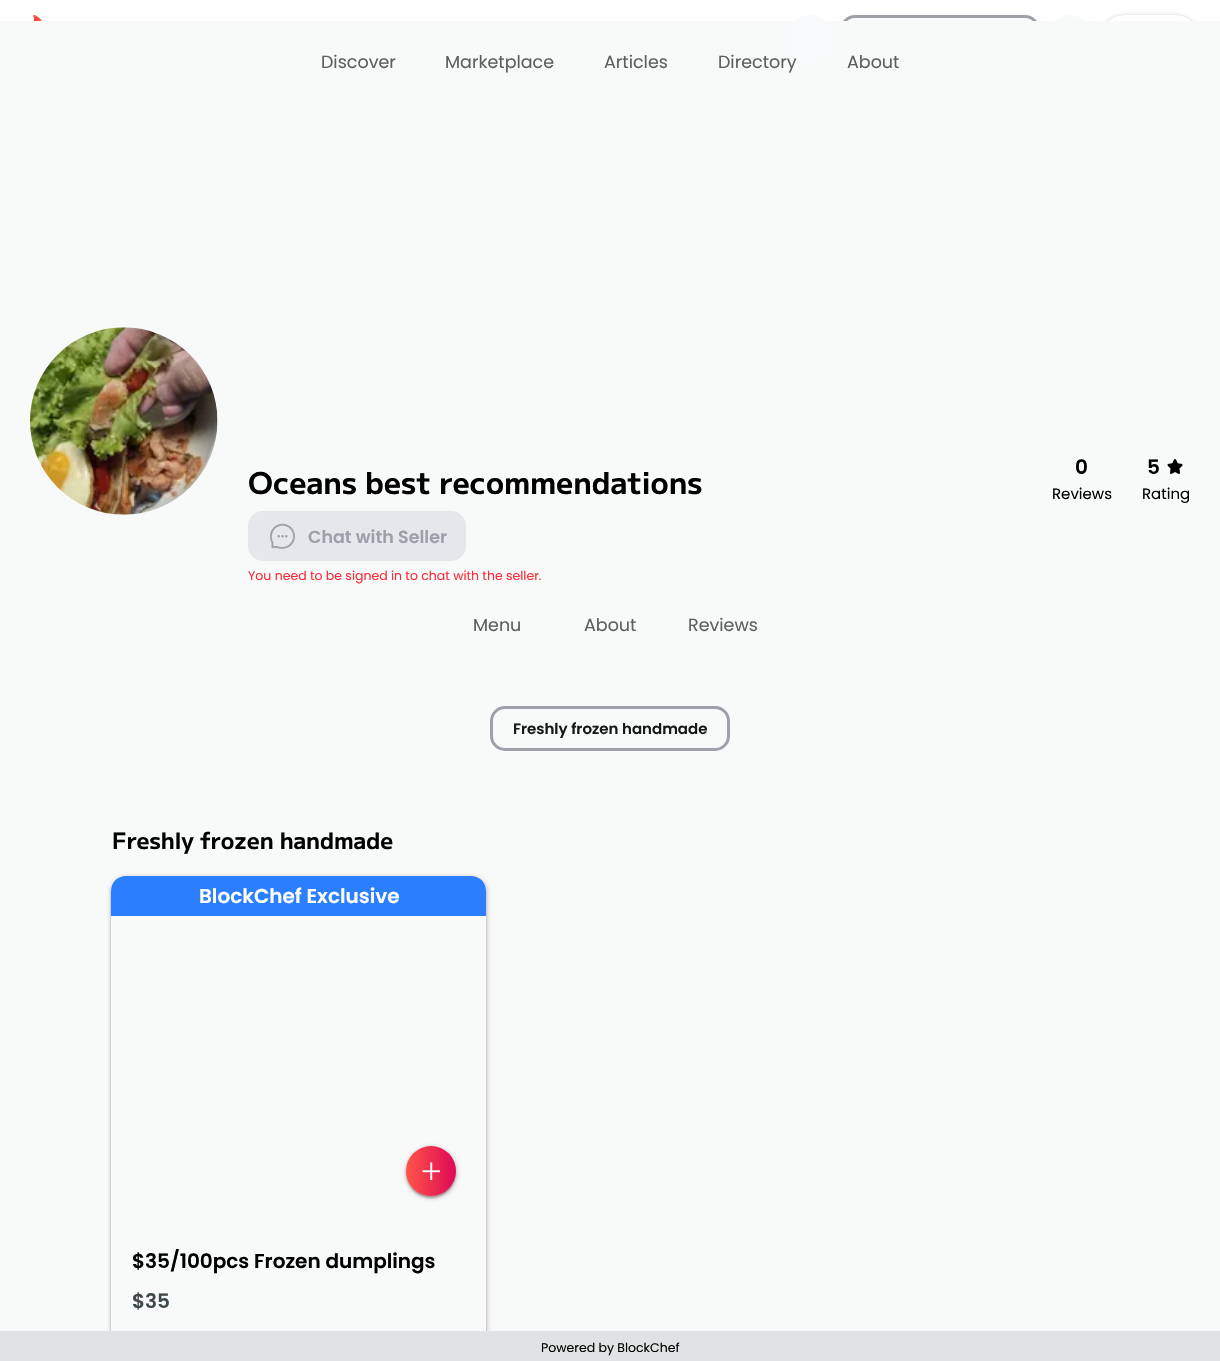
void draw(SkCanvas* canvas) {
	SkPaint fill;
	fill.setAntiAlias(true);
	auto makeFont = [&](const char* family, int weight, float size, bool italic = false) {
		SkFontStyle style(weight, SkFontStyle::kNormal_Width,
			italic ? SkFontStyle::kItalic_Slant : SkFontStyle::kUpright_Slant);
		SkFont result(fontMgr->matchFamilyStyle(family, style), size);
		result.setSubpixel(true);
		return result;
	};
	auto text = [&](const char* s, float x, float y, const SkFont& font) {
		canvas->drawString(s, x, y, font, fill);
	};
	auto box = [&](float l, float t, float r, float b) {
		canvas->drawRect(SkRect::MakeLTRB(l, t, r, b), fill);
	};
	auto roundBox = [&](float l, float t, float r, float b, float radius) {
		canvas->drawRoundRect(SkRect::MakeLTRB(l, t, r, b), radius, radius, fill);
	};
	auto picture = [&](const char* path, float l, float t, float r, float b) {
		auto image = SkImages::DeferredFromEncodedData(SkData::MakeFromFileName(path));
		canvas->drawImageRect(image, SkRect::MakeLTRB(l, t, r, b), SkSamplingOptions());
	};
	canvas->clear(0xFFF8FAFA);
	fill.setColor(0xFFFFFFFF);
	box(0, 0, 1220, 21);
	picture("image0.png", 33, 15, 42, 21);
	fill.setColor(0xFFF9FAFB);
	canvas->drawCircle(810, 40, 25, fill);
	canvas->drawRoundRect(SkRect::MakeLTRB(841.5f, 16.5f, 1038.5f, 63.5f), 13.5f, 13.5f, fill);
	fill.setStyle(SkPaint::kStroke_Style);
	fill.setStrokeWidth(3);
	fill.setColor(0xFF9F9FA9);
	canvas->drawRoundRect(SkRect::MakeLTRB(841.5f, 16.5f, 1038.5f, 63.5f), 13.5f, 13.5f, fill);
	canvas->save();
	canvas->clipPath(SkPathBuilder(SkPathFillType::kEvenOdd).moveTo(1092, 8).lineTo(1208, 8).lineTo(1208, 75).lineTo(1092, 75).close().moveTo(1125, 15).lineTo(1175, 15).cubicTo(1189, 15, 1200, 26, 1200, 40).cubicTo(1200, 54, 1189, 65, 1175, 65).lineTo(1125, 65).cubicTo(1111, 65, 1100, 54, 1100, 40).cubicTo(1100, 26, 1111, 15, 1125, 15).close().detach(), true);
	fill.setStyle(SkPaint::kFill_Style);
	fill.setColor(0x26210101);
	fill.setMaskFilter(SkMaskFilter::MakeBlur(kNormal_SkBlurStyle, 2));
	canvas->drawRoundRect(SkRect::MakeLTRB(1099, 15, 1201, 68), 26.5f, 26.5f, fill);
	fill.setMaskFilter(nullptr);
	canvas->restore();
	fill.setColor(0xFFF9FAFB);
	canvas->drawCircle(1070, 40, 25, fill);
	canvas->save();
	canvas->clipPath(SkPathBuilder(SkPathFillType::kEvenOdd).moveTo(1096, 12).lineTo(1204, 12).lineTo(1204, 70).lineTo(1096, 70).close().moveTo(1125, 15).lineTo(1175, 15).cubicTo(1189, 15, 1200, 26, 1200, 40).cubicTo(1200, 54, 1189, 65, 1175, 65).lineTo(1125, 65).cubicTo(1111, 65, 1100, 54, 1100, 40).cubicTo(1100, 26, 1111, 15, 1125, 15).close().detach(), true);
	fill.setColor(0x4D210101);
	fill.setMaskFilter(SkMaskFilter::MakeBlur(kNormal_SkBlurStyle, 1));
	canvas->drawRoundRect(SkRect::MakeLTRB(1100, 16, 1200, 66), 25, 25, fill);
	fill.setMaskFilter(nullptr);
	canvas->restore();
	fill.setColor(0xFFF8FAFA);
	box(840, 21, 1204, 71);
	fill.setColor(0xFFE5E7EB);
	roundBox(248, 511, 466, 561, 15);
	picture("image1.png", 270, 523, 295, 549);
	picture("image2.png", 30, 327, 218, 515);
	picture("image3.png", 1167, 459, 1183, 474);
	fill.setStyle(SkPaint::kStroke_Style);
	fill.setColor(0xFF9F9FA9);
	canvas->drawRoundRect(SkRect::MakeLTRB(491.5f, 707.5f, 728.5f, 749.5f), 13.5f, 13.5f, fill);
	fill.setStyle(SkPaint::kFill_Style);
	fill.setColor(0x4D210101);
	fill.setMaskFilter(SkMaskFilter::MakeBlur(kNormal_SkBlurStyle, 1));
	canvas->drawRoundRect(SkRect::MakeLTRB(111, 878, 486, 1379), 15, 15, fill);
	fill.setMaskFilter(nullptr);
	fill.setColor(0x26210101);
	fill.setMaskFilter(SkMaskFilter::MakeBlur(kNormal_SkBlurStyle, 2));
	canvas->drawRoundRect(SkRect::MakeLTRB(110, 876, 488, 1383), 16, 16, fill);
	fill.setMaskFilter(nullptr);
	fill.setColor(0xFFF8FAFA);
	roundBox(111, 876, 486, 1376, 15);
	fill.setColor(0xFF2B7FFF);
	canvas->drawPath(SkPathBuilder().moveTo(126, 876).lineTo(471, 876).cubicTo(479.5f, 876, 486, 882.5f, 486, 891).lineTo(486, 916).lineTo(111, 916).lineTo(111, 891).cubicTo(111, 882.5f, 117.5f, 876, 126, 876).close().detach(), fill);
	fill.setColor(0x4D210101);
	fill.setMaskFilter(SkMaskFilter::MakeBlur(kNormal_SkBlurStyle, 1));
	canvas->drawRoundRect(SkRect::MakeLTRB(406, 1148, 456, 1198), 25, 25, fill);
	fill.setMaskFilter(nullptr);
	fill.setColor(0x26210101);
	fill.setMaskFilter(SkMaskFilter::MakeBlur(kNormal_SkBlurStyle, 2));
	canvas->drawRoundRect(SkRect::MakeLTRB(405, 1146, 458, 1199), 26.5f, 26.5f, fill);
	fill.setMaskFilter(nullptr);
	{
		const SkColor colors[] = {0xFFFF5447, 0xFFDE0956};
		const float stops[] = {0, 1};
		const SkPoint ends[] = {{406, 1171}, {456, 1171}};
		fill.setShader(SkGradientShader::MakeLinear(ends, colors, stops, 2, SkTileMode::kClamp));
		fill.setAlpha(255);
	}
	canvas->drawCircle(431, 1171, 25, fill);
	picture("image4.png", 422, 1162, 440, 1180);
	fill.setShader(nullptr);
	fill.setColor(0xFFE0E3E3);
	box(0, 1331, 1220, 1361);
	auto font1 = makeFont("Poppins", 400, 17.5f);
	fill.setColor(0xFF5C5F5F);
	text("Discover", 321, 68, font1);
	text("Marketplace", 445, 68, font1);
	text("Articles", 604, 68, font1);
	text("Directory", 718, 68, font1);
	text("About", 847, 68, font1);
	auto font2 = makeFont("M PLUS 1", 700, 30);
	fill.setColor(0xFF000000);
	text("Oceans best recommendations", 248, 494, font2);
	auto font3 = makeFont("Poppins", 600, 17.5f);
	fill.setColor(0xFF9F9FA9);
	text("Chat with Seller", 308, 543, font3);
	auto font4 = makeFont("Poppins", 400, 12.5f);
	fill.setColor(0xFFFB2C36);
	text("You need to be signed in to chat with the seller.", 248, 580, font4);
	auto font5 = makeFont("Poppins", 600, 20);
	fill.setColor(0xFF000000);
	text("0", 1075, 474, font5);
	auto font6 = makeFont("Poppins", 400, 15);
	text("Reviews", 1052, 499, font6);
	text("5", 1147, 474, font5);
	text("Rating", 1142, 499, font6);
	fill.setColor(0xFF5C5F5F);
	text("Menu", 473, 631, font1);
	text("About", 584, 631, font1);
	text("Reviews", 688, 631, font1);
	auto font7 = makeFont("Poppins", 600, 15);
	fill.setColor(0xFF18181B);
	text("Freshly frozen handmade", 513, 734, font7);
	auto font8 = makeFont("M PLUS 1", 700, 22.5f);
	fill.setColor(0xFF000000);
	text("Freshly frozen handmade", 112, 849, font8);
	fill.setColor(0xFFFFFFFF);
	text("BlockChef Exclusive", 199, 903, font5);
	fill.setColor(0xFF000000);
	text("$35/100pcs Frozen dumplings", 132, 1268, font5);
	fill.setColor(0xFF3F484A);
	text("$35", 132, 1308, font5);
	fill.setColor(0xFF000000);
	text("Powered by BlockChef", 541, 1352, font4);
}
